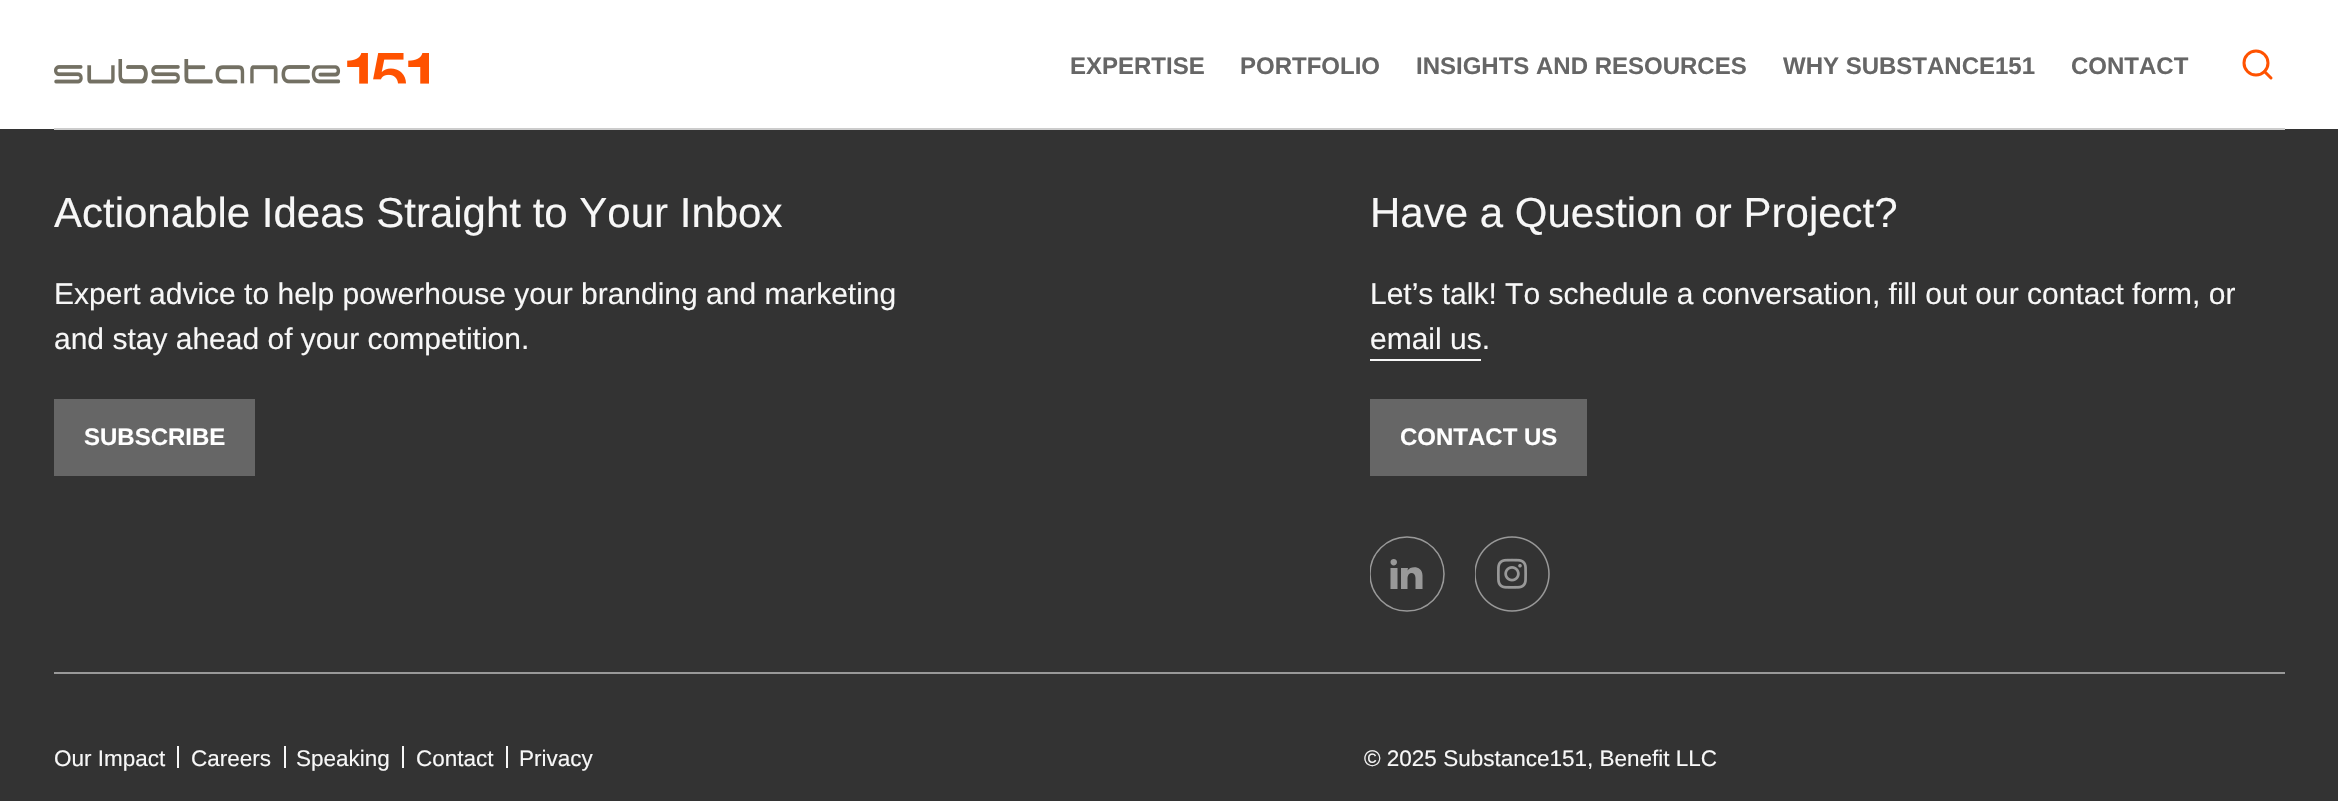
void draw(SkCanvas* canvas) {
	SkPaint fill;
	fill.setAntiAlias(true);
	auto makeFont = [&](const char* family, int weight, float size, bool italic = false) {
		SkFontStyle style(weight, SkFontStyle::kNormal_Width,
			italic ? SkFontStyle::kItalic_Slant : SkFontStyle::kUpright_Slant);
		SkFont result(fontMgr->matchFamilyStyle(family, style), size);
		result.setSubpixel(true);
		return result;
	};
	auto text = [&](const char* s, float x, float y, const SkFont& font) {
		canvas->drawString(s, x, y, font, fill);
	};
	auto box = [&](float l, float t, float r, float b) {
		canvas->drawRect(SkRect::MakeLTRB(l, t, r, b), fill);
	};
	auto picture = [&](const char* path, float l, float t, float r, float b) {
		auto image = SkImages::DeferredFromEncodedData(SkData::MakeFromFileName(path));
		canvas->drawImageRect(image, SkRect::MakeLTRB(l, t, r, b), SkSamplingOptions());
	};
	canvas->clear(0xFF333333);
	fill.setColor(0xFFFFFFFF);
	box(0, 0, 2338, 129);
	picture("image0.png", 54, 53, 429, 84);
	fill.setStyle(SkPaint::kStroke_Style);
	fill.setStrokeWidth(3);
	fill.setColor(0xFFFF5200);
	canvas->drawCircle(2256, 63, 12, fill);
	fill.setStrokeCap(SkPaint::kRound_Cap);
	fill.setStrokeJoin(SkPaint::kRound_Join);
	canvas->drawPath(SkPathBuilder().moveTo(2271, 78).lineTo(2264.5f, 71.5f).detach(), fill);
	fill.setStyle(SkPaint::kFill_Style);
	fill.setColor(0xFFCCCCCC);
	box(54, 128, 2285, 130);
	fill.setColor(0xFF666666);
	box(54, 399, 255, 476);
	fill.setColor(0xFFF7F7F7);
	box(1370, 359, 1481, 361);
	fill.setColor(0xFF666666);
	box(1370, 399, 1587, 476);
	fill.setColor(0xFF999999);
	canvas->drawPath(SkPathBuilder().moveTo(1397, 562).cubicTo(1397, 566.5f, 1390.5f, 566.5f, 1390.5f, 562).cubicTo(1390.5f, 558, 1397, 558, 1397, 562).close().moveTo(1397.5f, 568).lineTo(1390.5f, 568).lineTo(1390.5f, 589).lineTo(1397.5f, 589).close().moveTo(1408, 568).lineTo(1401, 568).lineTo(1401, 589).lineTo(1407.5f, 589).lineTo(1407.5f, 578).cubicTo(1407.5f, 571.5f, 1415.5f, 571, 1415.5f, 578).lineTo(1415.5f, 589).lineTo(1422.5f, 589).lineTo(1422.5f, 575.5f).cubicTo(1422.5f, 565.5f, 1410.5f, 565.5f, 1407.5f, 570.5f).close().detach(), fill);
	canvas->save();
	canvas->clipRect(SkRect::MakeLTRB(1370, 536, 1445, 612));
	fill.setStyle(SkPaint::kStroke_Style);
	fill.setStrokeWidth(1.5f);
	fill.setStrokeCap(SkPaint::kButt_Cap);
	fill.setStrokeJoin(SkPaint::kMiter_Join);
	canvas->drawCircle(1407, 574, 37, fill);
	canvas->restore();
	picture("image1.png", 1475, 536, 1550, 612);
	fill.setStyle(SkPaint::kFill_Style);
	box(54, 672, 2285, 674);
	fill.setColor(0xFFF7F7F7);
	box(177, 746, 179, 768);
	box(284, 746, 286, 768);
	box(402, 746, 404, 768);
	box(506, 746, 508, 768);
	auto font1 = makeFont("Liberation Sans", 700, 24);
	fill.setColor(0xFF666666);
	text("EXPERTISE", 1070, 74, font1);
	text("PORTFOLIO", 1240, 74, font1);
	text("INSIGHTS AND RESOURCES", 1416, 74, font1);
	text("WHY SUBSTANCE151", 1783, 74, font1);
	text("CONTACT", 2071, 74, font1);
	auto font2 = makeFont("Liberation Sans", 400, 42);
	fill.setColor(0xFFF7F7F7);
	text("Actionable Ideas Straight to Your Inbox", 54, 227, font2);
	auto font3 = makeFont("Liberation Sans", 400, 30);
	text("Expert advice to help powerhouse your branding and marketing", 54, 304, font3);
	text("and stay ahead of your competition.", 54, 349, font3);
	fill.setColor(0xFFFFFFFF);
	text("SUBSCRIBE", 84, 445, font1);
	fill.setColor(0xFFF7F7F7);
	text("Have a Question or Project?", 1370, 227, font2);
	text("Let’s talk! To schedule a conversation, fill out our contact form, or", 1370, 304, font3);
	text("email us.", 1370, 349, font3);
	fill.setColor(0xFFFFFFFF);
	text("CONTACT US", 1400, 445, font1);
	auto font4 = makeFont("Liberation Sans", 400, 22.5f);
	fill.setColor(0xFFF7F7F7);
	text("Our Impact", 54, 766, font4);
	text("Careers", 191, 766, font4);
	text("Speaking", 296, 766, font4);
	text("Contact", 416, 766, font4);
	text("Privacy", 519, 766, font4);
	text("© 2025 Substance151, Benefit LLC", 1364, 766, font4);
}
